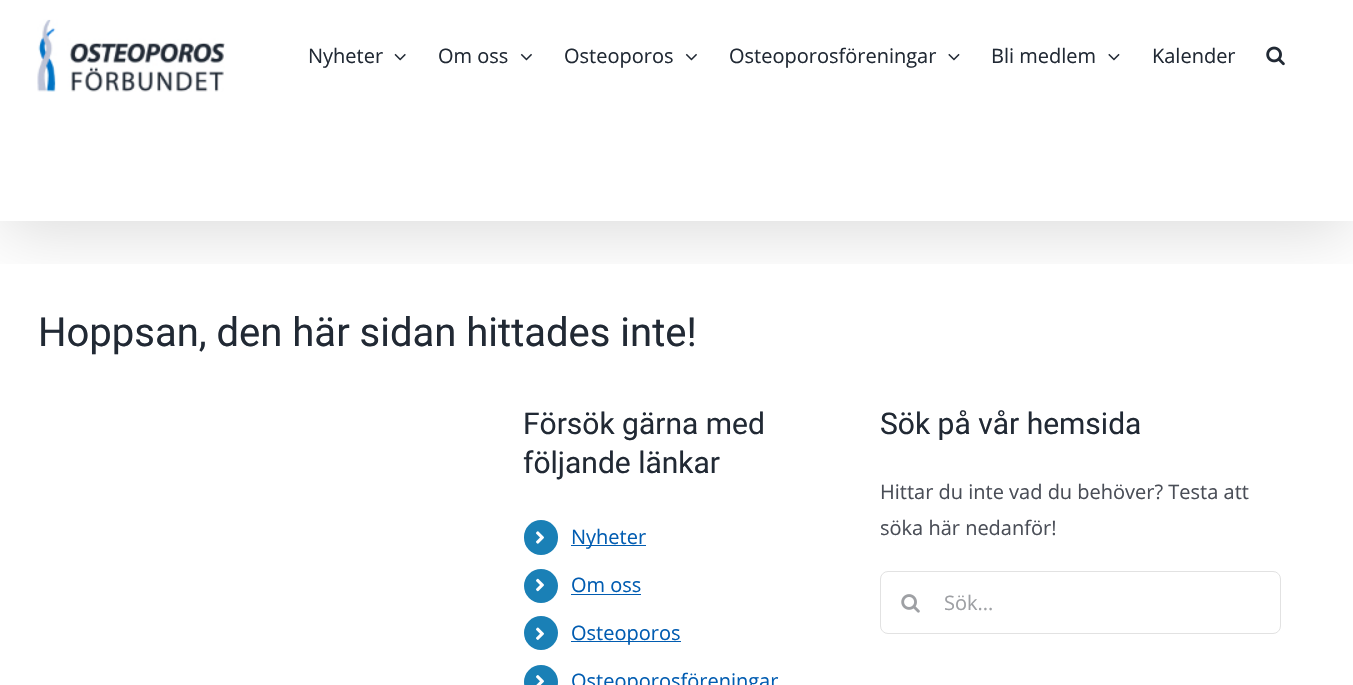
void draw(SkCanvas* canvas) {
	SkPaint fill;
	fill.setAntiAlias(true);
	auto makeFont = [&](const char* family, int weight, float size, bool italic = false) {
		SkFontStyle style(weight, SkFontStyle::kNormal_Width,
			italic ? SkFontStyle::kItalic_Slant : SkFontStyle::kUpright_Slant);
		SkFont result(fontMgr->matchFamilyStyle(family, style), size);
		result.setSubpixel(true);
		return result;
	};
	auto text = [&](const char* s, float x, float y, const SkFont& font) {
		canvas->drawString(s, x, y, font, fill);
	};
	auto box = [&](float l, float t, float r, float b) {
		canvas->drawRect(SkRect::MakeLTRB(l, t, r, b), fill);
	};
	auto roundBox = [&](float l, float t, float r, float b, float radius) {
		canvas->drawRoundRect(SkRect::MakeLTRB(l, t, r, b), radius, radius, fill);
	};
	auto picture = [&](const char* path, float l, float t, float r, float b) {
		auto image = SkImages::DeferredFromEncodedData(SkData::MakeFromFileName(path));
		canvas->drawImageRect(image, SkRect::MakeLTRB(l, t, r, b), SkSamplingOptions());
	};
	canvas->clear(0xFFFFFFFF);
	canvas->save();
	canvas->clipRect(SkRect::MakeLTRB(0, 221, 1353, 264));
	fill.setColor(0x24000000);
	fill.setMaskFilter(SkMaskFilter::MakeBlur(kNormal_SkBlurStyle, 31));
	canvas->drawRect(SkRect::MakeLTRB(3, 15, 1351, 231), fill);
	fill.setMaskFilter(nullptr);
	canvas->restore();
	picture("image0.png", 37, 19, 225, 92);
	picture("image1.png", 394, 53, 406, 61);
	picture("image2.png", 520, 53, 532, 61);
	picture("image2.png", 685, 53, 697, 61);
	picture("image3.png", 948, 53, 960, 61);
	picture("image3.png", 1108, 53, 1120, 61);
	picture("image4.png", 1266, 46, 1285, 66);
	fill.setColor(0xFF1A80B6);
	roundBox(524, 520, 558, 555, 17);
	picture("image5.png", 536, 531, 544, 544);
	fill.setColor(0xFF015CB1);
	box(571, 545, 646, 546);
	fill.setColor(0xFF1A80B6);
	canvas->drawCircle(541, 586, 17, fill);
	picture("image6.png", 536, 578, 544, 592);
	fill.setColor(0xFF015CB1);
	box(571, 594, 641, 595);
	fill.setColor(0xFF1A80B6);
	canvas->drawCircle(541, 633, 17, fill);
	picture("image7.png", 536, 627, 544, 640);
	fill.setColor(0xFF015CB1);
	box(571, 641, 681, 642);
	fill.setColor(0xFF1A80B6);
	canvas->drawCircle(541, 682, 17, fill);
	picture("image8.png", 536, 675, 544, 685);
	fill.setStyle(SkPaint::kStroke_Style);
	fill.setStrokeWidth(1);
	fill.setColor(0xFFE2E2E2);
	canvas->drawRoundRect(SkRect::MakeLTRB(880.5f, 571.5f, 1280.5f, 633.5f), 7.5f, 7.5f, fill);
	picture("image9.png", 901, 594, 920, 613);
	auto font1 = makeFont("Open Sans", 400, 20);
	fill.setStyle(SkPaint::kFill_Style);
	fill.setColor(0xFF212934);
	text("Nyheter", 308, 63, font1);
	text("Om oss", 438, 63, font1);
	text("Osteoporos", 564, 63, font1);
	text("Osteoporosföreningar", 729, 63, font1);
	text("Bli medlem", 991, 63, font1);
	text("Kalender", 1152, 63, font1);
	auto font2 = makeFont("Roboto", 400, 40);
	text("Hoppsan, den här sidan hittades inte!", 38, 346, font2);
	auto font3 = makeFont("Roboto", 400, 30);
	text("Försök gärna med", 523, 434, font3);
	text("följande länkar", 523, 473, font3);
	fill.setColor(0xFF015CB1);
	text("Nyheter", 571, 544, font1);
	text("Om oss", 571, 592, font1);
	text("Osteoporos", 571, 640, font1);
	text("Osteoporosföreningar", 571, 688, font1);
	fill.setColor(0xFF212934);
	text("Sök på vår hemsida", 880, 434, font3);
	fill.setColor(0xFF4A4E57);
	text("Hittar du inte vad du behöver? Testa att", 880, 499, font1);
	text("söka här nedanför!", 880, 535, font1);
	fill.setColor(0xFF9EA0A4);
	text("Sök...", 944, 610, font1);
}
